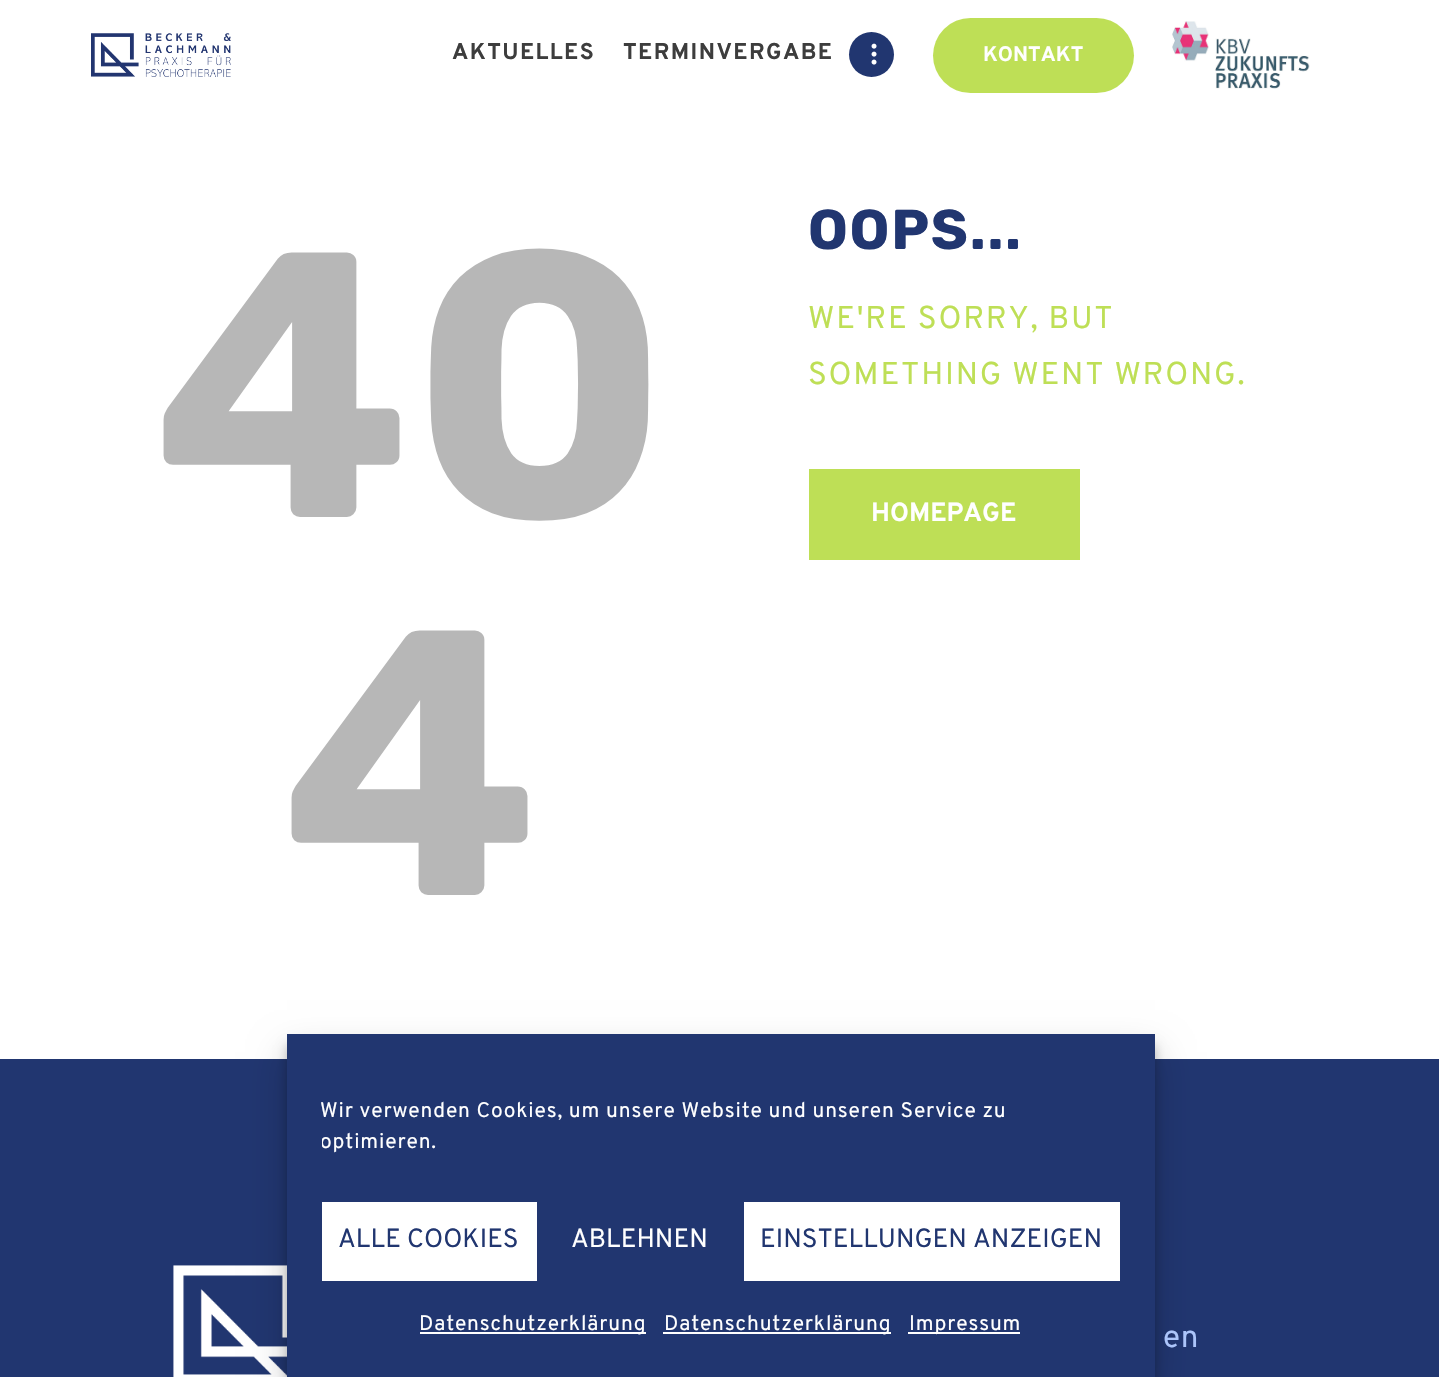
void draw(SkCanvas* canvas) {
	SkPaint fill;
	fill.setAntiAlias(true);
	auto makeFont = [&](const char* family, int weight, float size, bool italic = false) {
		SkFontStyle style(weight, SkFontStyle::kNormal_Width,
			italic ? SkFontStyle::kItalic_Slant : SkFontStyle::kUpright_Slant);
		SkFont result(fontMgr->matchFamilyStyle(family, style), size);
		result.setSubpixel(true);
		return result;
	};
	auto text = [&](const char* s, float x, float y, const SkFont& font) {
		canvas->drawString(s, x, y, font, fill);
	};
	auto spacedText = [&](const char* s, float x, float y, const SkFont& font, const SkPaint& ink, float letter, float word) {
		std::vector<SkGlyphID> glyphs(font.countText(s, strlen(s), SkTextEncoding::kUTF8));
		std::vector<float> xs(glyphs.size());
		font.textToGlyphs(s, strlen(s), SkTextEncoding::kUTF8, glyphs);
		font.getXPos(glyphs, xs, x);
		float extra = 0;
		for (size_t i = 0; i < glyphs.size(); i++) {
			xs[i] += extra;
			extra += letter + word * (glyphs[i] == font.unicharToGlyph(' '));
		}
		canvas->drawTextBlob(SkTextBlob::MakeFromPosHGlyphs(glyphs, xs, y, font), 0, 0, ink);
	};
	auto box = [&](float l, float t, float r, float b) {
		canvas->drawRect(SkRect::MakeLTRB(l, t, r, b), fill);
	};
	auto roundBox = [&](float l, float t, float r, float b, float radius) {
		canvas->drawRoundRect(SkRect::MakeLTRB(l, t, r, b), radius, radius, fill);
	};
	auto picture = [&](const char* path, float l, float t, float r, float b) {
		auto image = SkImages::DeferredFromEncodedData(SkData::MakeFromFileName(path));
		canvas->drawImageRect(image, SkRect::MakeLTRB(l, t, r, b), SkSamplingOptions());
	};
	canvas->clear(0xFFFFFFFF);
	picture("image0.png", 91, 33, 231, 77);
	fill.setColor(0xFF213670);
	canvas->drawCircle(871.5f, 54.5f, 22.5f, fill);
	picture("image1.png", 871, 43, 877, 65);
	fill.setColor(0xFFBEDF56);
	roundBox(933, 18, 1134, 93, 37.5f);
	picture("image2.png", 1172, 21, 1310, 89);
	box(809, 469, 1080, 560);
	fill.setColor(0xFF213670);
	box(0, 1059, 1439, 1377);
	picture("image3.png", 173, 1265, 287, 1377);
	fill.setColor(0x3B000000);
	fill.setMaskFilter(SkMaskFilter::MakeBlur(kNormal_SkBlurStyle, 5));
	canvas->drawRect(SkRect::MakeLTRB(287, 1045, 1155, 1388), fill);
	fill.setMaskFilter(nullptr);
	fill.setColor(0x30000000);
	fill.setMaskFilter(SkMaskFilter::MakeBlur(kNormal_SkBlurStyle, 17.5f));
	canvas->drawRect(SkRect::MakeLTRB(287, 1052, 1155, 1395), fill);
	fill.setMaskFilter(nullptr);
	fill.setColor(0xFF213670);
	box(287, 1034, 1155, 1377);
	fill.setColor(0xFFFFFFFF);
	box(322, 1202, 537, 1281);
	box(744, 1202, 1120, 1281);
	box(420, 1332, 646, 1334);
	box(663, 1332, 891, 1334);
	box(908, 1332, 1020, 1334);
	auto font1 = makeFont("Overpass", 700, 22.75f);
	fill.setColor(0xFF3D3D3D);
	spacedText("AKTUELLES", 452, 59, font1, fill, 1.4f, 0);
	spacedText("TERMINVERGABE", 623, 59, font1, fill, 1.4f, 0);
	auto font2 = makeFont("Overpass", 700, 21);
	fill.setColor(0xFFFFFFFF);
	text("KONTAKT", 983, 61, font2);
	auto font3 = makeFont("Rubik", 700, 378);
	fill.setColor(0xFFB7B7B7);
	text("40", 153, 517, font3);
	text("4", 281, 895, font3);
	auto font4 = makeFont("Rubik", 700, 56);
	fill.setColor(0xFF213670);
	spacedText("OOPS...", 808, 249, font4, fill, 1.75f, 0);
	auto font5 = makeFont("Overpass", 400, 31.5f);
	fill.setColor(0xFFBEDF56);
	spacedText("WE'RE SORRY, BUT", 808, 328, font5, fill, 1.75f, 0);
	spacedText("SOMETHING WENT WRONG.", 808, 384, font5, fill, 1.75f, 0);
	auto font6 = makeFont("Overpass", 700, 26.25f);
	fill.setColor(0xFFFFFFFF);
	text("HOMEPAGE", 871, 521, font6);
	fill.setColor(0xFFACC5FA);
	spacedText("en", 1163, 1347, font5, fill, 0.88f, 0);
	auto font7 = makeFont("Overpass", 400, 21);
	fill.setColor(0xFFFFFFFF);
	spacedText("Wir verwenden Cookies, um unsere Website und unseren Service zu", 320, 1117, font7, fill, 0.88f, 0);
	canvas->save();
	canvas->clipRect(SkRect::MakeLTRB(322, 1096, 1120, 1167));
	spacedText("optimieren.", 320, 1148, font7, fill, 0.88f, 0);
	canvas->restore();
	auto font8 = makeFont("Overpass", 400, 26.25f);
	fill.setColor(0xFF213670);
	text("ALLE COOKIES", 338, 1247, font8);
	fill.setColor(0xFFFFFFFF);
	text("ABLEHNEN", 571, 1247, font8);
	fill.setColor(0xFF213670);
	text("EINSTELLUNGEN ANZEIGEN", 760, 1247, font8);
	fill.setColor(0xFFFFFFFF);
	spacedText("Datenschutzerklärung", 419, 1330, font7, fill, 0.88f, 0);
	spacedText("Datenschutzerklärung", 664, 1330, font7, fill, 0.88f, 0);
	spacedText("Impressum", 909, 1330, font7, fill, 0.88f, 0);
}
